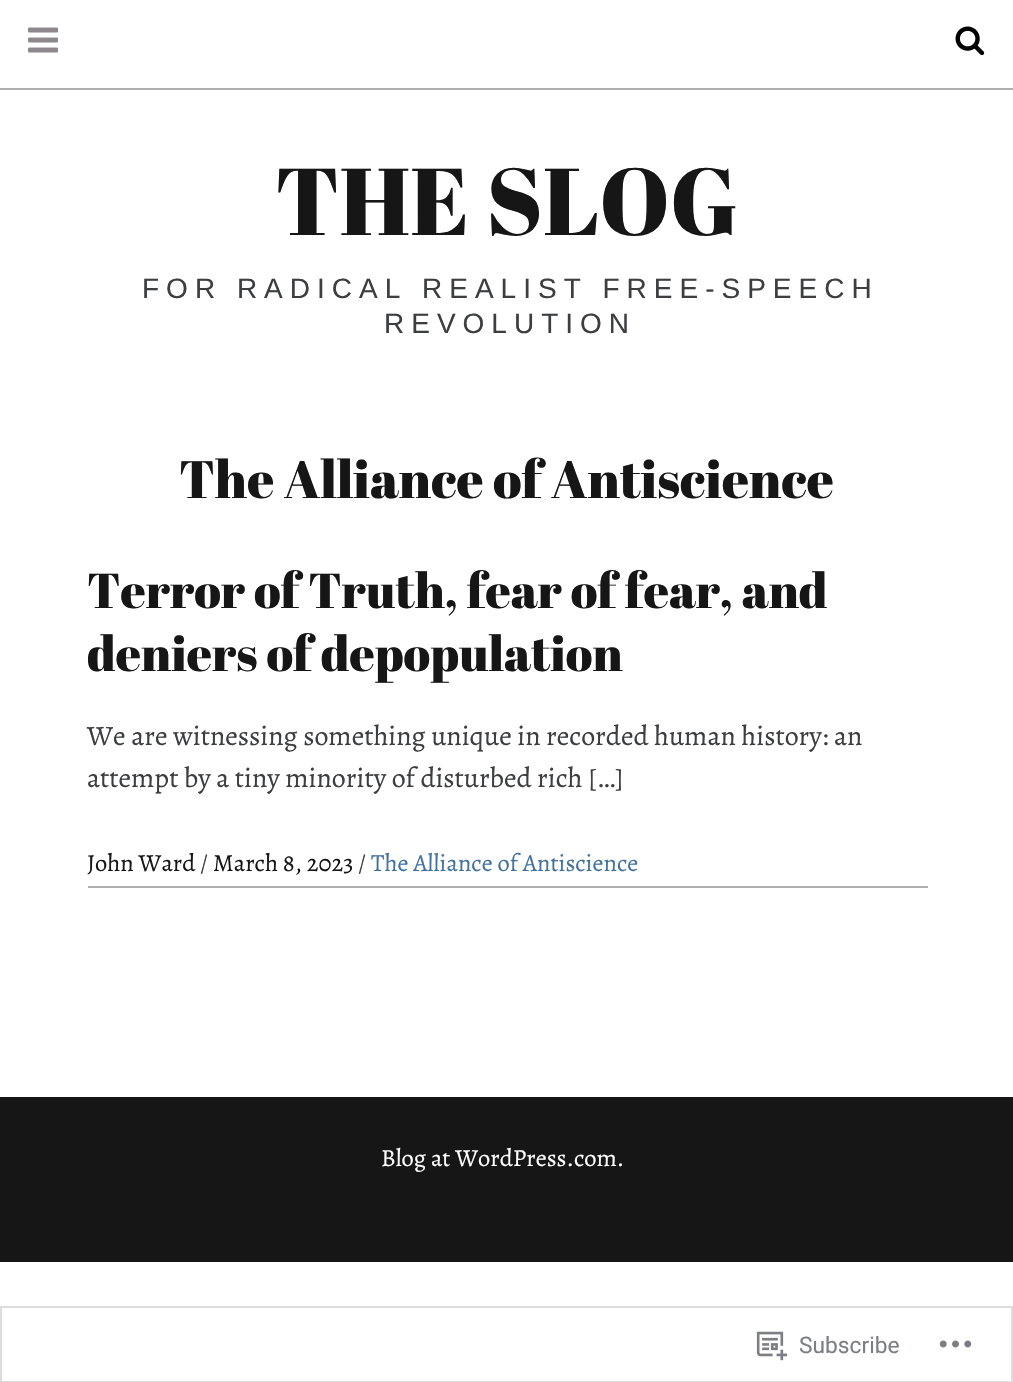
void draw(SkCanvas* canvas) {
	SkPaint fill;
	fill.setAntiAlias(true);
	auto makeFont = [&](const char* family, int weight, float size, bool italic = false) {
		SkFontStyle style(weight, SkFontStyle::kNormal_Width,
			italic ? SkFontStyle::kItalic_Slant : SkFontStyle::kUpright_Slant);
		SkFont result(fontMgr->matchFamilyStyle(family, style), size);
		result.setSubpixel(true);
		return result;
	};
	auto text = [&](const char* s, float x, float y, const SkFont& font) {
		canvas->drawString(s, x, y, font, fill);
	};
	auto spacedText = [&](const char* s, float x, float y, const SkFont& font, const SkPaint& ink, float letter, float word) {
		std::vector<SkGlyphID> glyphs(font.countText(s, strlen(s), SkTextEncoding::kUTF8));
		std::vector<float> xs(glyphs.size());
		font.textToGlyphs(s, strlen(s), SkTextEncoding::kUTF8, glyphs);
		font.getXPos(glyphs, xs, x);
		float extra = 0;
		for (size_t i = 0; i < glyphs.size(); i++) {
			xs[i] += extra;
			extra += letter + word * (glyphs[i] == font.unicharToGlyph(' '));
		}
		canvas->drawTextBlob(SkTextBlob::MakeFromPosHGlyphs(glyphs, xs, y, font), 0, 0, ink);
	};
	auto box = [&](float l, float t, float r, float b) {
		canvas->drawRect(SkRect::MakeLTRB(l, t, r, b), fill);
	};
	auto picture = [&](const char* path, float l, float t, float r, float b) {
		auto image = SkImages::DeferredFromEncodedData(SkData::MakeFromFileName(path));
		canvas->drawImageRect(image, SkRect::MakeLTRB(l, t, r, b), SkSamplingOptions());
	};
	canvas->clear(0xFFFFFFFF);
	fill.setColor(0xFFAFAFAF);
	box(0, 88, 1013, 90);
	picture("image0.png", 955, 26, 985, 56);
	picture("image1.png", 28, 27, 58, 53);
	box(88, 886, 928, 888);
	fill.setColor(0xFF171617);
	box(0, 1097, 1013, 1262);
	fill.setStyle(SkPaint::kStroke_Style);
	fill.setStrokeWidth(2);
	fill.setColor(0xFFDDDDDF);
	canvas->drawRect(SkRect::MakeLTRB(1, 1307, 1012, 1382), fill);
	picture("image2.png", 756, 1331, 788, 1361);
	picture("image3.png", 939, 1340, 972, 1348);
	auto font1 = makeFont("Abril Fatface", 400, 94.5f);
	fill.setStyle(SkPaint::kFill_Style);
	fill.setColor(0xFF171617);
	text("THE SLOG", 275, 235, font1);
	auto font2 = makeFont("Liberation Sans", 400, 28);
	fill.setColor(0xFF3D3E40);
	spacedText("FOR RADICAL REALIST FREE-SPEECH", 142, 298, font2, fill, 7, 0);
	spacedText("REVOLUTION", 384, 333, font2, fill, 7, 0);
	auto font3 = makeFont("Abril Fatface", 400, 52.5f);
	fill.setColor(0xFF171617);
	text("The Alliance of Antiscience", 179, 498, font3);
	auto font4 = makeFont("Abril Fatface", 400, 49);
	text("Terror of Truth, fear of fear, and", 87, 608, font4);
	text("deniers of depopulation", 87, 671, font4);
	auto font5 = makeFont("Alegreya", 400, 28);
	fill.setColor(0xFF3D3E40);
	text("We are witnessing something unique in recorded human history: an", 87, 745, font5);
	text("attempt by a tiny minority of disturbed rich […]", 87, 787, font5);
	auto font6 = makeFont("Alegreya", 400, 24.5f);
	fill.setColor(0xFF171617);
	text("John Ward", 87, 871, font6);
	fill.setColor(0xFF3D3E40);
	text("/", 200, 871, font6);
	fill.setColor(0xFF171617);
	text("March 8, 2023", 213, 871, font6);
	fill.setColor(0xFF3D3E40);
	text("/", 358, 871, font6);
	fill.setColor(0xFF4472A0);
	text("The Alliance of Antiscience", 371, 871, font6);
	fill.setColor(0xFFFFFFFF);
	text("Blog at WordPress.com.", 381, 1166, font6);
	auto font7 = makeFont("Roboto", 400, 22.75f);
	fill.setColor(0xFF7B7F85);
	text("Subscribe", 799, 1353, font7);
}
